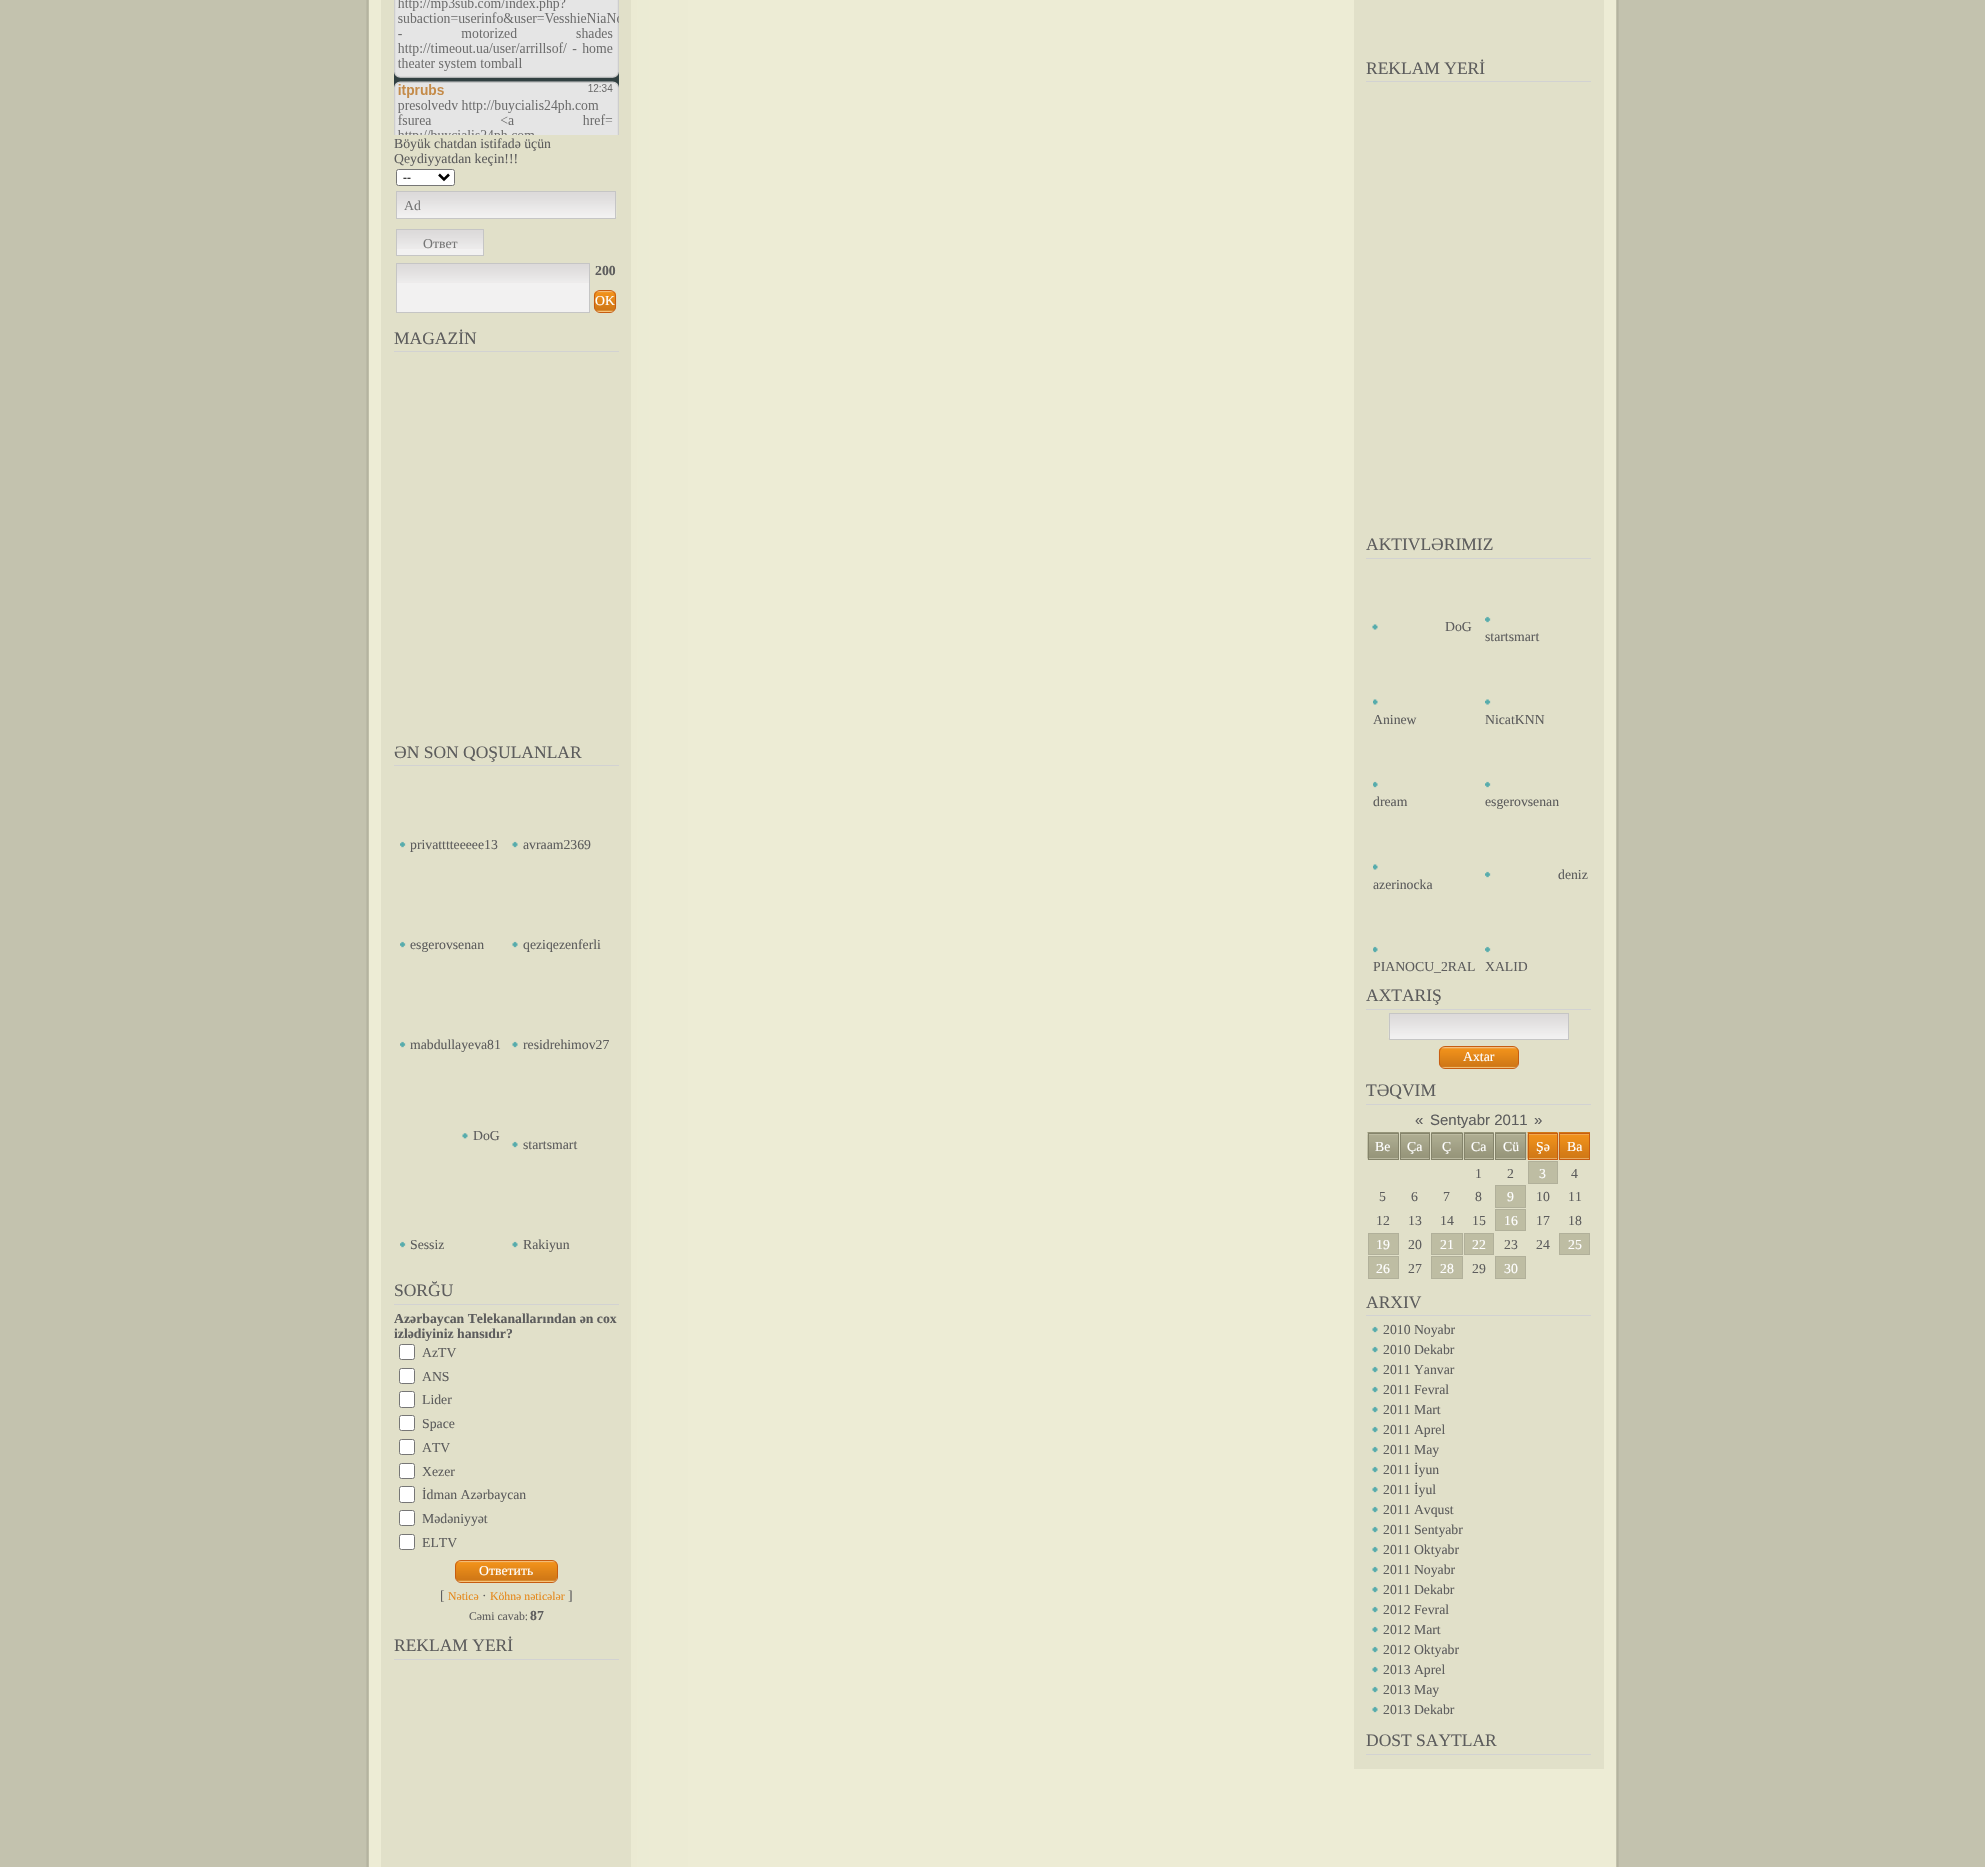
void draw(SkCanvas* canvas) {
	SkPaint fill;
	fill.setAntiAlias(true);
	auto makeFont = [&](const char* family, int weight, float size, bool italic = false) {
		SkFontStyle style(weight, SkFontStyle::kNormal_Width,
			italic ? SkFontStyle::kItalic_Slant : SkFontStyle::kUpright_Slant);
		SkFont result(fontMgr->matchFamilyStyle(family, style), size);
		result.setSubpixel(true);
		return result;
	};
	auto text = [&](const char* s, float x, float y, const SkFont& font) {
		canvas->drawString(s, x, y, font, fill);
	};
	auto box = [&](float l, float t, float r, float b) {
		canvas->drawRect(SkRect::MakeLTRB(l, t, r, b), fill);
	};
	auto picture = [&](const char* path, float l, float t, float r, float b) {
		auto image = SkImages::DeferredFromEncodedData(SkData::MakeFromFileName(path));
		canvas->drawImageRect(image, SkRect::MakeLTRB(l, t, r, b), SkSamplingOptions());
	};
	canvas->clear(0xFFC3C2AE);
	picture("image0.png", 366, 0, 1619, 1867);
	fill.setColor(0xFFE1E0C9);
	box(381, 0, 631, 1867);
	picture("image1.png", 394, 0, 619, 135);
	fill.setColor(0xFFFFFFFF);
	canvas->drawRoundRect(SkRect::MakeLTRB(396.5f, 169.5f, 454.5f, 185.5f), 2, 2, fill);
	fill.setStyle(SkPaint::kStroke_Style);
	fill.setStrokeWidth(1);
	fill.setColor(0xFF767676);
	canvas->drawRoundRect(SkRect::MakeLTRB(396.5f, 169.5f, 454.5f, 185.5f), 2, 2, fill);
	fill.setStrokeWidth(2.5f);
	fill.setColor(0xFF000000);
	canvas->drawPath(SkPathBuilder().moveTo(439, 174.5f).lineTo(444, 179.5f).lineTo(449, 174.5f).detach(), fill);
	fill.setStyle(SkPaint::kFill_Style);
	fill.setColor(0xFFF2F1F1);
	box(397, 217, 615, 218);
	picture("image2.png", 397, 192, 617, 217);
	fill.setStyle(SkPaint::kStroke_Style);
	fill.setStrokeWidth(1);
	fill.setColor(0xFFC5C5C5);
	canvas->drawRect(SkRect::MakeLTRB(396.5f, 191.5f, 615.5f, 218.5f), fill);
	fill.setStyle(SkPaint::kFill_Style);
	fill.setColor(0xFFF2F1F1);
	box(397, 249, 483, 255);
	picture("image3.png", 397, 230, 483, 249);
	fill.setStyle(SkPaint::kStroke_Style);
	fill.setColor(0xFFC5C5C5);
	canvas->drawRect(SkRect::MakeLTRB(396.5f, 229.5f, 483.5f, 255.5f), fill);
	fill.setStyle(SkPaint::kFill_Style);
	fill.setColor(0xFFF2F1F1);
	box(397, 283, 589, 312);
	picture("image4.png", 397, 264, 589, 283);
	fill.setStyle(SkPaint::kStroke_Style);
	fill.setColor(0xFFC5C5C5);
	canvas->drawRect(SkRect::MakeLTRB(396.5f, 263.5f, 589.5f, 312.5f), fill);
	picture("image5.png", 593, 290, 617, 312);
	fill.setColor(0xFFC75D11);
	canvas->drawRoundRect(SkRect::MakeLTRB(594.5f, 290.5f, 615.5f, 312.5f), 5.5f, 5.5f, fill);
	fill.setStyle(SkPaint::kFill_Style);
	fill.setColor(0xFFD2D2D2);
	box(394, 351, 619, 352);
	box(394, 765, 619, 766);
	picture("image6.png", 400, 841, 406, 848);
	picture("image7.png", 512, 841, 518, 848);
	picture("image6.png", 400, 941, 406, 948);
	picture("image7.png", 512, 941, 518, 948);
	picture("image6.png", 400, 1041, 406, 1048);
	picture("image7.png", 512, 1041, 518, 1048);
	picture("image8.png", 462, 1133, 468, 1139);
	picture("image7.png", 512, 1141, 518, 1148);
	picture("image6.png", 400, 1241, 406, 1248);
	picture("image7.png", 512, 1241, 518, 1248);
	box(394, 1304, 619, 1305);
	fill.setColor(0xFFFFFFFF);
	canvas->drawRoundRect(SkRect::MakeLTRB(399.5f, 1344.5f, 414.5f, 1359.5f), 2, 2, fill);
	fill.setStyle(SkPaint::kStroke_Style);
	fill.setColor(0xFF767676);
	canvas->drawRoundRect(SkRect::MakeLTRB(399.5f, 1344.5f, 414.5f, 1359.5f), 2, 2, fill);
	fill.setStyle(SkPaint::kFill_Style);
	fill.setColor(0xFFFFFFFF);
	canvas->drawRoundRect(SkRect::MakeLTRB(399.5f, 1368.5f, 414.5f, 1383.5f), 2, 2, fill);
	fill.setStyle(SkPaint::kStroke_Style);
	fill.setColor(0xFF767676);
	canvas->drawRoundRect(SkRect::MakeLTRB(399.5f, 1368.5f, 414.5f, 1383.5f), 2, 2, fill);
	fill.setStyle(SkPaint::kFill_Style);
	fill.setColor(0xFFFFFFFF);
	canvas->drawRoundRect(SkRect::MakeLTRB(399.5f, 1391.5f, 414.5f, 1407.5f), 2, 2, fill);
	fill.setStyle(SkPaint::kStroke_Style);
	fill.setColor(0xFF767676);
	canvas->drawRoundRect(SkRect::MakeLTRB(399.5f, 1391.5f, 414.5f, 1407.5f), 2, 2, fill);
	fill.setStyle(SkPaint::kFill_Style);
	fill.setColor(0xFFFFFFFF);
	canvas->drawRoundRect(SkRect::MakeLTRB(399.5f, 1415.5f, 414.5f, 1430.5f), 2, 2, fill);
	fill.setStyle(SkPaint::kStroke_Style);
	fill.setColor(0xFF767676);
	canvas->drawRoundRect(SkRect::MakeLTRB(399.5f, 1415.5f, 414.5f, 1430.5f), 2, 2, fill);
	fill.setStyle(SkPaint::kFill_Style);
	fill.setColor(0xFFFFFFFF);
	canvas->drawRoundRect(SkRect::MakeLTRB(399.5f, 1439.5f, 414.5f, 1454.5f), 2, 2, fill);
	fill.setStyle(SkPaint::kStroke_Style);
	fill.setColor(0xFF767676);
	canvas->drawRoundRect(SkRect::MakeLTRB(399.5f, 1439.5f, 414.5f, 1454.5f), 2, 2, fill);
	fill.setStyle(SkPaint::kFill_Style);
	fill.setColor(0xFFFFFFFF);
	canvas->drawRoundRect(SkRect::MakeLTRB(399.5f, 1463.5f, 414.5f, 1478.5f), 2, 2, fill);
	fill.setStyle(SkPaint::kStroke_Style);
	fill.setColor(0xFF767676);
	canvas->drawRoundRect(SkRect::MakeLTRB(399.5f, 1463.5f, 414.5f, 1478.5f), 2, 2, fill);
	fill.setStyle(SkPaint::kFill_Style);
	fill.setColor(0xFFFFFFFF);
	canvas->drawRoundRect(SkRect::MakeLTRB(399.5f, 1486.5f, 414.5f, 1502.5f), 2, 2, fill);
	fill.setStyle(SkPaint::kStroke_Style);
	fill.setColor(0xFF767676);
	canvas->drawRoundRect(SkRect::MakeLTRB(399.5f, 1486.5f, 414.5f, 1502.5f), 2, 2, fill);
	fill.setStyle(SkPaint::kFill_Style);
	fill.setColor(0xFFFFFFFF);
	canvas->drawRoundRect(SkRect::MakeLTRB(399.5f, 1510.5f, 414.5f, 1525.5f), 2, 2, fill);
	fill.setStyle(SkPaint::kStroke_Style);
	fill.setColor(0xFF767676);
	canvas->drawRoundRect(SkRect::MakeLTRB(399.5f, 1510.5f, 414.5f, 1525.5f), 2, 2, fill);
	fill.setStyle(SkPaint::kFill_Style);
	fill.setColor(0xFFFFFFFF);
	canvas->drawRoundRect(SkRect::MakeLTRB(399.5f, 1534.5f, 414.5f, 1549.5f), 2, 2, fill);
	fill.setStyle(SkPaint::kStroke_Style);
	fill.setColor(0xFF767676);
	canvas->drawRoundRect(SkRect::MakeLTRB(399.5f, 1534.5f, 414.5f, 1549.5f), 2, 2, fill);
	picture("image9.png", 455, 1560, 558, 1582);
	fill.setColor(0xFFC75D11);
	canvas->drawRoundRect(SkRect::MakeLTRB(455.5f, 1560.5f, 557.5f, 1582.5f), 5.5f, 5.5f, fill);
	fill.setStyle(SkPaint::kFill_Style);
	fill.setColor(0xFFD2D2D2);
	box(394, 1659, 619, 1660);
	fill.setColor(0xFFE1E0C9);
	box(1354, 0, 1604, 1769);
	fill.setColor(0xFFD2D2D2);
	box(1366, 81, 1591, 82);
	box(1366, 558, 1591, 559);
	picture("image10.png", 1372, 624, 1378, 630);
	picture("image6.png", 1485, 616, 1491, 623);
	picture("image11.png", 1373, 699, 1378, 705);
	picture("image12.png", 1485, 699, 1491, 705);
	picture("image13.png", 1373, 781, 1378, 788);
	picture("image6.png", 1485, 781, 1491, 788);
	picture("image6.png", 1485, 871, 1491, 878);
	picture("image11.png", 1373, 864, 1378, 870);
	picture("image13.png", 1373, 946, 1378, 953);
	picture("image6.png", 1485, 946, 1491, 953);
	box(1366, 1009, 1591, 1010);
	fill.setColor(0xFFF2F1F1);
	box(1390, 1038, 1568, 1039);
	picture("image14.png", 1388, 1013, 1568, 1038);
	fill.setStyle(SkPaint::kStroke_Style);
	fill.setColor(0xFFC5C5C5);
	canvas->drawRect(SkRect::MakeLTRB(1389.5f, 1013.5f, 1568.5f, 1039.5f), fill);
	picture("image15.png", 1438, 1047, 1519, 1069);
	fill.setColor(0xFFC75D11);
	canvas->drawRoundRect(SkRect::MakeLTRB(1439.5f, 1046.5f, 1518.5f, 1068.5f), 5.5f, 5.5f, fill);
	fill.setStyle(SkPaint::kFill_Style);
	fill.setColor(0xFFD2D2D2);
	box(1366, 1104, 1591, 1105);
	picture("image16.png", 1367, 1132, 1399, 1160);
	fill.setStyle(SkPaint::kStroke_Style);
	fill.setColor(0xFF85846B);
	canvas->drawRect(SkRect::MakeLTRB(1368.5f, 1133.5f, 1398.5f, 1159.5f), fill);
	picture("image17.png", 1400, 1132, 1430, 1159);
	canvas->drawRect(SkRect::MakeLTRB(1400.5f, 1133.5f, 1429.5f, 1159.5f), fill);
	picture("image18.png", 1431, 1132, 1463, 1159);
	canvas->drawRect(SkRect::MakeLTRB(1431.5f, 1133.5f, 1462.5f, 1159.5f), fill);
	picture("image19.png", 1463, 1132, 1494, 1160);
	canvas->drawRect(SkRect::MakeLTRB(1464.5f, 1133.5f, 1493.5f, 1159.5f), fill);
	picture("image20.png", 1495, 1132, 1527, 1160);
	canvas->drawRect(SkRect::MakeLTRB(1495.5f, 1133.5f, 1525.5f, 1159.5f), fill);
	picture("image21.png", 1527, 1132, 1558, 1160);
	fill.setColor(0xFFC75D11);
	canvas->drawRect(SkRect::MakeLTRB(1528.5f, 1133.5f, 1557.5f, 1159.5f), fill);
	picture("image22.png", 1558, 1132, 1590, 1160);
	canvas->drawRect(SkRect::MakeLTRB(1559.5f, 1133.5f, 1589.5f, 1159.5f), fill);
	fill.setStyle(SkPaint::kFill_Style);
	fill.setColor(0xFFBEBDA3);
	canvas->drawRect(SkRect::MakeLTRB(1528.5f, 1161.5f, 1557.5f, 1183.5f), fill);
	fill.setStyle(SkPaint::kStroke_Style);
	fill.setColor(0xFFB1B09A);
	canvas->drawRect(SkRect::MakeLTRB(1528.5f, 1161.5f, 1557.5f, 1183.5f), fill);
	fill.setStyle(SkPaint::kFill_Style);
	fill.setColor(0xFFBEBDA3);
	canvas->drawRect(SkRect::MakeLTRB(1495.5f, 1185.5f, 1525.5f, 1207.5f), fill);
	fill.setStyle(SkPaint::kStroke_Style);
	fill.setColor(0xFFB1B09A);
	canvas->drawRect(SkRect::MakeLTRB(1495.5f, 1185.5f, 1525.5f, 1207.5f), fill);
	fill.setStyle(SkPaint::kFill_Style);
	fill.setColor(0xFFBEBDA3);
	canvas->drawRect(SkRect::MakeLTRB(1495.5f, 1209.5f, 1525.5f, 1230.5f), fill);
	fill.setStyle(SkPaint::kStroke_Style);
	fill.setColor(0xFFB1B09A);
	canvas->drawRect(SkRect::MakeLTRB(1495.5f, 1209.5f, 1525.5f, 1230.5f), fill);
	fill.setStyle(SkPaint::kFill_Style);
	fill.setColor(0xFFBEBDA3);
	canvas->drawRect(SkRect::MakeLTRB(1368.5f, 1233.5f, 1398.5f, 1254.5f), fill);
	fill.setStyle(SkPaint::kStroke_Style);
	fill.setColor(0xFFB1B09A);
	canvas->drawRect(SkRect::MakeLTRB(1368.5f, 1233.5f, 1398.5f, 1254.5f), fill);
	fill.setStyle(SkPaint::kFill_Style);
	fill.setColor(0xFFBEBDA3);
	canvas->drawRect(SkRect::MakeLTRB(1431.5f, 1233.5f, 1462.5f, 1254.5f), fill);
	fill.setStyle(SkPaint::kStroke_Style);
	fill.setColor(0xFFB1B09A);
	canvas->drawRect(SkRect::MakeLTRB(1431.5f, 1233.5f, 1462.5f, 1254.5f), fill);
	fill.setStyle(SkPaint::kFill_Style);
	fill.setColor(0xFFBEBDA3);
	canvas->drawRect(SkRect::MakeLTRB(1464.5f, 1233.5f, 1493.5f, 1254.5f), fill);
	fill.setStyle(SkPaint::kStroke_Style);
	fill.setColor(0xFFB1B09A);
	canvas->drawRect(SkRect::MakeLTRB(1464.5f, 1233.5f, 1493.5f, 1254.5f), fill);
	fill.setStyle(SkPaint::kFill_Style);
	fill.setColor(0xFFBEBDA3);
	canvas->drawRect(SkRect::MakeLTRB(1559.5f, 1233.5f, 1589.5f, 1254.5f), fill);
	fill.setStyle(SkPaint::kStroke_Style);
	fill.setColor(0xFFB1B09A);
	canvas->drawRect(SkRect::MakeLTRB(1559.5f, 1233.5f, 1589.5f, 1254.5f), fill);
	fill.setStyle(SkPaint::kFill_Style);
	fill.setColor(0xFFBEBDA3);
	canvas->drawRect(SkRect::MakeLTRB(1368.5f, 1256.5f, 1398.5f, 1278.5f), fill);
	fill.setStyle(SkPaint::kStroke_Style);
	fill.setColor(0xFFB1B09A);
	canvas->drawRect(SkRect::MakeLTRB(1368.5f, 1256.5f, 1398.5f, 1278.5f), fill);
	fill.setStyle(SkPaint::kFill_Style);
	fill.setColor(0xFFBEBDA3);
	canvas->drawRect(SkRect::MakeLTRB(1431.5f, 1256.5f, 1462.5f, 1278.5f), fill);
	fill.setStyle(SkPaint::kStroke_Style);
	fill.setColor(0xFFB1B09A);
	canvas->drawRect(SkRect::MakeLTRB(1431.5f, 1256.5f, 1462.5f, 1278.5f), fill);
	fill.setStyle(SkPaint::kFill_Style);
	fill.setColor(0xFFBEBDA3);
	canvas->drawRect(SkRect::MakeLTRB(1495.5f, 1256.5f, 1525.5f, 1278.5f), fill);
	fill.setStyle(SkPaint::kStroke_Style);
	fill.setColor(0xFFB1B09A);
	canvas->drawRect(SkRect::MakeLTRB(1495.5f, 1256.5f, 1525.5f, 1278.5f), fill);
	fill.setStyle(SkPaint::kFill_Style);
	fill.setColor(0xFFD2D2D2);
	box(1366, 1315, 1591, 1316);
	picture("image7.png", 1372, 1326, 1378, 1333);
	picture("image7.png", 1372, 1346, 1378, 1353);
	picture("image7.png", 1372, 1366, 1378, 1373);
	picture("image7.png", 1372, 1386, 1378, 1393);
	picture("image7.png", 1372, 1406, 1378, 1413);
	picture("image7.png", 1372, 1426, 1378, 1433);
	picture("image7.png", 1372, 1446, 1378, 1453);
	picture("image7.png", 1372, 1466, 1378, 1473);
	picture("image7.png", 1372, 1486, 1378, 1493);
	picture("image7.png", 1372, 1506, 1378, 1513);
	picture("image7.png", 1372, 1526, 1378, 1533);
	picture("image7.png", 1372, 1546, 1378, 1553);
	picture("image7.png", 1372, 1566, 1378, 1573);
	picture("image7.png", 1372, 1586, 1378, 1593);
	picture("image7.png", 1372, 1606, 1378, 1613);
	picture("image7.png", 1372, 1626, 1378, 1633);
	picture("image7.png", 1372, 1646, 1378, 1653);
	picture("image7.png", 1372, 1666, 1378, 1673);
	picture("image7.png", 1372, 1686, 1378, 1693);
	picture("image7.png", 1372, 1706, 1378, 1713);
	box(1366, 1754, 1591, 1755);
	auto font1 = makeFont("Liberation Serif", 400, 13.75f);
	fill.setColor(0xFF5D5D5D);
	text("Böyük chatdan istifadə üçün", 394, 148, font1);
	text("Qeydiyyatdan keçin!!!", 394, 163, font1);
	auto font2 = makeFont("Liberation Serif", 400, 11.75f);
	fill.setColor(0xFF000000);
	text("--", 403, 181, font2);
	fill.setColor(0xFF757575);
	text("Ad", 404, 210, font1);
	text("Ответ", 423, 248, font1);
	auto font3 = makeFont("Liberation Serif", 700, 13.75f);
	fill.setColor(0xFF5D5D5D);
	text("200", 595, 275, font3);
	fill.setColor(0xFFFFFFFF);
	text("OK", 595, 305, font1);
	auto font4 = makeFont("Liberation Serif", 400, 17.5f);
	fill.setColor(0xFF5D5D5D);
	text("MAGAZİN", 394, 344, font4);
	text("ƏN SON QOŞULANLAR", 394, 758, font4);
	text("privatttteeeee13", 410, 849, font1);
	text("avraam2369", 523, 849, font1);
	text("esgerovsenan", 410, 949, font1);
	text("qeziqezenferli", 523, 949, font1);
	text("mabdullayeva81", 410, 1049, font1);
	text("residrehimov27", 523, 1049, font1);
	text("DoG", 473, 1140, font1);
	text("startsmart", 523, 1149, font1);
	text("Sessiz", 410, 1249, font1);
	text("Rakiyun", 523, 1249, font1);
	text("SORĞU", 394, 1296, font4);
	text("Azərbaycan Telekanallarından ən cox", 394, 1323, font3);
	text("izlədiyiniz hansıdır?", 394, 1338, font3);
	text("AzTV", 422, 1357, font1);
	text("ANS", 422, 1381, font1);
	text("Lider", 422, 1404, font1);
	text("Space", 422, 1428, font1);
	text("ATV", 422, 1452, font1);
	text("Xezer", 422, 1476, font1);
	text("İdman Azərbaycan", 422, 1499, font1);
	text("Mədəniyyət", 422, 1523, font1);
	text("ELTV", 422, 1547, font1);
	fill.setColor(0xFFFFFFFF);
	text("Ответить", 479, 1575, font1);
	fill.setColor(0xFF5D5D5D);
	text("[", 440, 1600, font1);
	fill.setColor(0xFFE5891C);
	text("Nəticə", 448, 1600, font2);
	fill.setColor(0xFF5D5D5D);
	text("·", 482, 1600, font1);
	fill.setColor(0xFFE5891C);
	text("Köhnə nəticələr", 490, 1600, font2);
	fill.setColor(0xFF5D5D5D);
	text("]", 568, 1600, font1);
	text("Cəmi cavab:", 469, 1620, font2);
	text("87", 530, 1620, font3);
	text("REKLAM YERİ", 394, 1651, font4);
	text("REKLAM YERİ", 1366, 74, font4);
	text("AKTIVLƏRIMIZ", 1366, 550, font4);
	text("DoG", 1445, 631, font1);
	text("startsmart", 1485, 641, font1);
	text("Aninew", 1373, 724, font1);
	text("NicatKNN", 1485, 724, font1);
	text("dream", 1373, 806, font1);
	text("esgerovsenan", 1485, 806, font1);
	text("deniz", 1558, 879, font1);
	text("azerinocka", 1373, 889, font1);
	text("PIANOCU_2RAL", 1373, 971, font1);
	text("XALID", 1485, 971, font1);
	text("AXTARIŞ", 1366, 1001, font4);
	fill.setColor(0xFFFFFFFF);
	text("Axtar", 1463, 1061, font1);
	fill.setColor(0xFF5D5D5D);
	text("TƏQVIM", 1366, 1096, font4);
	auto font5 = makeFont("Liberation Sans", 400, 15);
	text("«", 1415, 1125, font5);
	text("Sentyabr 2011", 1430, 1125, font5);
	text("»", 1534, 1125, font5);
	fill.setColor(0xFFFFFFFF);
	text("Be", 1375, 1151, font1);
	text("Ça", 1407, 1151, font1);
	text("Ç", 1442, 1151, font1);
	text("Ca", 1471, 1151, font1);
	text("Cü", 1503, 1151, font1);
	text("Şə", 1536, 1151, font1);
	text("Ba", 1567, 1151, font1);
	fill.setColor(0xFF5D5D5D);
	text("1", 1475, 1178, font1);
	text("2", 1507, 1178, font1);
	fill.setColor(0xFFFFFFFF);
	text("3", 1539, 1178, font1);
	fill.setColor(0xFF5D5D5D);
	text("4", 1571, 1178, font1);
	text("5", 1379, 1201, font1);
	text("6", 1411, 1201, font1);
	text("7", 1443, 1201, font1);
	text("8", 1475, 1201, font1);
	fill.setColor(0xFFFFFFFF);
	text("9", 1507, 1201, font1);
	fill.setColor(0xFF5D5D5D);
	text("10", 1536, 1201, font1);
	text("11", 1568, 1201, font1);
	text("12", 1376, 1225, font1);
	text("13", 1408, 1225, font1);
	text("14", 1440, 1225, font1);
	text("15", 1472, 1225, font1);
	fill.setColor(0xFFFFFFFF);
	text("16", 1504, 1225, font1);
	fill.setColor(0xFF5D5D5D);
	text("17", 1536, 1225, font1);
	text("18", 1568, 1225, font1);
	fill.setColor(0xFFFFFFFF);
	text("19", 1376, 1249, font1);
	fill.setColor(0xFF5D5D5D);
	text("20", 1408, 1249, font1);
	fill.setColor(0xFFFFFFFF);
	text("21", 1440, 1249, font1);
	text("22", 1472, 1249, font1);
	fill.setColor(0xFF5D5D5D);
	text("23", 1504, 1249, font1);
	text("24", 1536, 1249, font1);
	fill.setColor(0xFFFFFFFF);
	text("25", 1568, 1249, font1);
	text("26", 1376, 1273, font1);
	fill.setColor(0xFF5D5D5D);
	text("27", 1408, 1273, font1);
	fill.setColor(0xFFFFFFFF);
	text("28", 1440, 1273, font1);
	fill.setColor(0xFF5D5D5D);
	text("29", 1472, 1273, font1);
	fill.setColor(0xFFFFFFFF);
	text("30", 1504, 1273, font1);
	fill.setColor(0xFF5D5D5D);
	text("ARXIV", 1366, 1308, font4);
	text("2010 Noyabr", 1383, 1334, font1);
	text("2010 Dekabr", 1383, 1354, font1);
	text("2011 Yanvar", 1383, 1374, font1);
	text("2011 Fevral", 1383, 1394, font1);
	text("2011 Mart", 1383, 1414, font1);
	text("2011 Aprel", 1383, 1434, font1);
	text("2011 May", 1383, 1454, font1);
	text("2011 İyun", 1383, 1474, font1);
	text("2011 İyul", 1383, 1494, font1);
	text("2011 Avqust", 1383, 1514, font1);
	text("2011 Sentyabr", 1383, 1534, font1);
	text("2011 Oktyabr", 1383, 1554, font1);
	text("2011 Noyabr", 1383, 1574, font1);
	text("2011 Dekabr", 1383, 1594, font1);
	text("2012 Fevral", 1383, 1614, font1);
	text("2012 Mart", 1383, 1634, font1);
	text("2012 Oktyabr", 1383, 1654, font1);
	text("2013 Aprel", 1383, 1674, font1);
	text("2013 May", 1383, 1694, font1);
	text("2013 Dekabr", 1383, 1714, font1);
	text("DOST SAYTLAR", 1366, 1746, font4);
}
